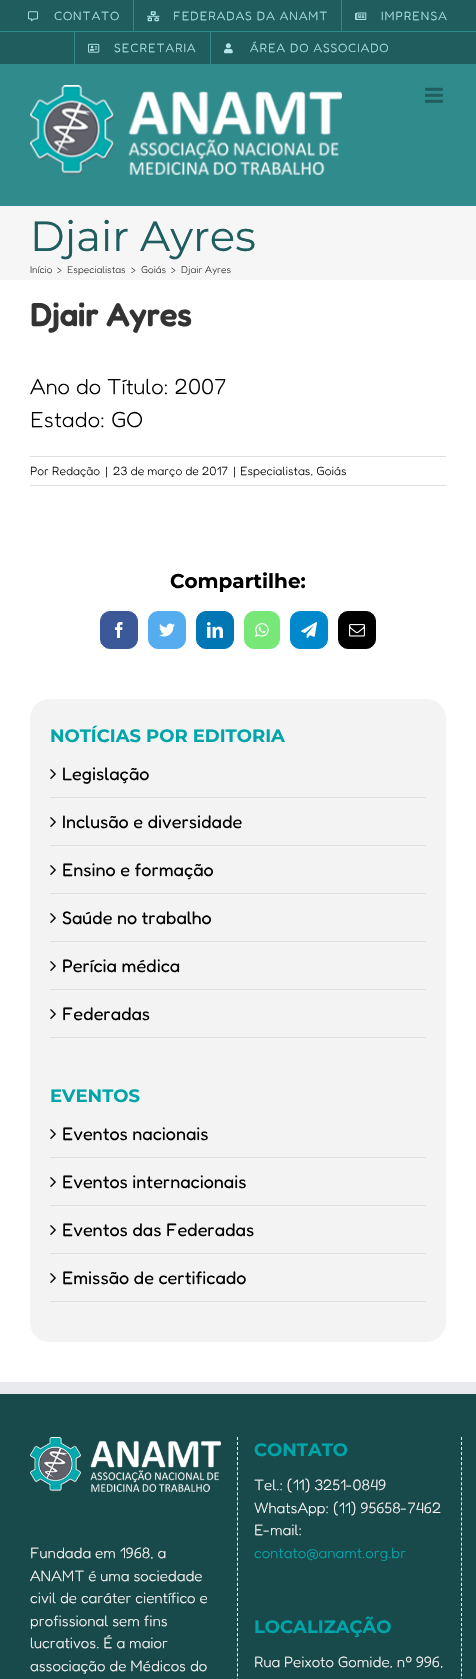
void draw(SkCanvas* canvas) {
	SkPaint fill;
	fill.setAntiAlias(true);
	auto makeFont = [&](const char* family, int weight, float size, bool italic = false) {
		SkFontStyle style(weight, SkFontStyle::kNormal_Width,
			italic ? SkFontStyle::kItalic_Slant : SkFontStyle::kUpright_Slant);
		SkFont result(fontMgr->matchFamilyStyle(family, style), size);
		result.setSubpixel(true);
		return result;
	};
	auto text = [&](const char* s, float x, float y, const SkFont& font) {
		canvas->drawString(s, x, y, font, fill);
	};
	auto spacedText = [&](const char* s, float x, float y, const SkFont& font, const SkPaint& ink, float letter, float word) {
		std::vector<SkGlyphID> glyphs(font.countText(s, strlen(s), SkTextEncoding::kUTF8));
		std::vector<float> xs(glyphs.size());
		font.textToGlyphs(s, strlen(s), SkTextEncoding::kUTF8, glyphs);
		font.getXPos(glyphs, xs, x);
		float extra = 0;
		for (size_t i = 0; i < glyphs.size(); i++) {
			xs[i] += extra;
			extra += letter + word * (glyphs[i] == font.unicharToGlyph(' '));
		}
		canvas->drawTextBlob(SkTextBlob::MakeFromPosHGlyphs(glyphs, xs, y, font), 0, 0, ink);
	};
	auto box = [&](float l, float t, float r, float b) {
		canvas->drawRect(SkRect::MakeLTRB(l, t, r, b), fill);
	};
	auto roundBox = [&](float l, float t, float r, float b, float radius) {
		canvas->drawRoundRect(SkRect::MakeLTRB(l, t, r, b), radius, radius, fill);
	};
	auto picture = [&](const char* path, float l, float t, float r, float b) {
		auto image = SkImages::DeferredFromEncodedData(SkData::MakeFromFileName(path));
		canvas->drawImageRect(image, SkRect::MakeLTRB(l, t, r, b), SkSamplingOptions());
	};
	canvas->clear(0xFFFFFFFF);
	fill.setColor(0xFF1F5D5E);
	box(0, 0, 476, 64);
	fill.setColor(0xFF308B8D);
	box(0, 64, 476, 206);
	picture("image0.png", 28, 11, 38, 22);
	box(133, 0, 134, 32);
	picture("image1.png", 147, 11, 160, 22);
	box(341, 0, 342, 32);
	picture("image2.png", 355, 12, 367, 20);
	box(0, 31, 476, 32);
	box(74, 32, 75, 64);
	picture("image3.png", 88, 43, 100, 53);
	box(210, 32, 211, 64);
	picture("image4.png", 224, 43, 233, 54);
	picture("image5.png", 30, 85, 342, 175);
	picture("image6.png", 425, 87, 443, 103);
	fill.setColor(0xFFF6F6F6);
	box(0, 206, 476, 280);
	fill.setColor(0xFFE0DEDE);
	box(30, 456, 446, 457);
	box(30, 485, 446, 486);
	fill.setColor(0xFF3B5998);
	canvas->drawRoundRect(SkRect::MakeLTRB(100.5f, 611.5f, 137.5f, 648.5f), 9.5f, 9.5f, fill);
	fill.setStyle(SkPaint::kStroke_Style);
	fill.setStrokeWidth(1);
	canvas->drawRoundRect(SkRect::MakeLTRB(100.5f, 611.5f, 137.5f, 648.5f), 9.5f, 9.5f, fill);
	picture("image7.png", 115, 622, 123, 638);
	fill.setStyle(SkPaint::kFill_Style);
	fill.setColor(0xFF55ACEE);
	canvas->drawRoundRect(SkRect::MakeLTRB(148.5f, 611.5f, 185.5f, 648.5f), 9.5f, 9.5f, fill);
	fill.setStyle(SkPaint::kStroke_Style);
	canvas->drawRoundRect(SkRect::MakeLTRB(148.5f, 611.5f, 185.5f, 648.5f), 9.5f, 9.5f, fill);
	picture("image8.png", 159, 623, 175, 637);
	fill.setStyle(SkPaint::kFill_Style);
	fill.setColor(0xFF0077B5);
	canvas->drawRoundRect(SkRect::MakeLTRB(196.5f, 611.5f, 233.5f, 648.5f), 9.5f, 9.5f, fill);
	fill.setStyle(SkPaint::kStroke_Style);
	canvas->drawRoundRect(SkRect::MakeLTRB(196.5f, 611.5f, 233.5f, 648.5f), 9.5f, 9.5f, fill);
	picture("image9.png", 207, 622, 223, 638);
	fill.setStyle(SkPaint::kFill_Style);
	fill.setColor(0xFF77E878);
	canvas->drawRoundRect(SkRect::MakeLTRB(244.5f, 611.5f, 279.5f, 648.5f), 9.5f, 9.5f, fill);
	fill.setStyle(SkPaint::kStroke_Style);
	canvas->drawRoundRect(SkRect::MakeLTRB(244.5f, 611.5f, 279.5f, 648.5f), 9.5f, 9.5f, fill);
	picture("image10.png", 255, 623, 269, 637);
	fill.setStyle(SkPaint::kFill_Style);
	fill.setColor(0xFF0088CC);
	canvas->drawRoundRect(SkRect::MakeLTRB(290.5f, 611.5f, 327.5f, 648.5f), 9.5f, 9.5f, fill);
	fill.setStyle(SkPaint::kStroke_Style);
	canvas->drawRoundRect(SkRect::MakeLTRB(290.5f, 611.5f, 327.5f, 648.5f), 9.5f, 9.5f, fill);
	picture("image11.png", 301, 622, 317, 638);
	fill.setStyle(SkPaint::kFill_Style);
	fill.setColor(0xFF000000);
	canvas->drawRoundRect(SkRect::MakeLTRB(338.5f, 611.5f, 375.5f, 648.5f), 9.5f, 9.5f, fill);
	fill.setStyle(SkPaint::kStroke_Style);
	canvas->drawRoundRect(SkRect::MakeLTRB(338.5f, 611.5f, 375.5f, 648.5f), 9.5f, 9.5f, fill);
	picture("image12.png", 349, 624, 365, 637);
	fill.setStyle(SkPaint::kFill_Style);
	fill.setColor(0xFFF3F3F3);
	roundBox(30, 699, 446, 1342, 20);
	fill.setColor(0xFFE0DEDE);
	box(50, 797, 426, 798);
	picture("image13.png", 50, 769, 56, 779);
	box(50, 845, 426, 846);
	picture("image13.png", 50, 817, 56, 827);
	box(50, 893, 426, 894);
	picture("image13.png", 50, 865, 56, 875);
	box(50, 941, 426, 942);
	picture("image13.png", 50, 913, 56, 923);
	box(50, 989, 426, 990);
	picture("image13.png", 50, 961, 56, 971);
	box(50, 1037, 426, 1038);
	picture("image13.png", 50, 1009, 56, 1019);
	box(50, 1157, 426, 1158);
	picture("image13.png", 50, 1129, 56, 1139);
	box(50, 1205, 426, 1206);
	picture("image13.png", 50, 1177, 56, 1187);
	box(50, 1253, 426, 1254);
	picture("image13.png", 50, 1225, 56, 1235);
	box(50, 1301, 426, 1302);
	picture("image13.png", 50, 1273, 56, 1283);
	fill.setColor(0xFF184A4B);
	box(0, 1394, 476, 1679);
	fill.setColor(0xFFE9EAEE);
	box(0, 1382, 476, 1394);
	fill.setStyle(SkPaint::kStroke_Style);
	fill.setColor(0xFFFFF7F7);
	fill.setPathEffect(SkDashPathEffect::Make({{3, 2.03f}}, 0));
	canvas->drawPath(SkPathBuilder().moveTo(237.5f, 1437).lineTo(237.5f, 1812).detach(), fill);
	fill.setPathEffect(nullptr);
	picture("image14.png", 30, 1437, 221, 1492);
	fill.setPathEffect(SkDashPathEffect::Make({{3, 2.03f}}, 0));
	canvas->drawPath(SkPathBuilder().moveTo(461.5f, 1437).lineTo(461.5f, 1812).detach(), fill);
	fill.setPathEffect(nullptr);
	auto font1 = makeFont("Fredoka", 300, 12);
	fill.setStyle(SkPaint::kFill_Style);
	fill.setColor(0xFFB2E5E6);
	spacedText("CONTATO", 54, 20, font1, fill, 1, 0);
	spacedText("FEDERADAS DA ANAMT", 173, 20, font1, fill, 1, 0);
	spacedText("IMPRENSA", 381, 20, font1, fill, 1, 0);
	spacedText("SECRETARIA", 114, 52, font1, fill, 1, 0);
	spacedText("ÁREA DO ASSOCIADO", 250, 52, font1, fill, 1, 0);
	auto font2 = makeFont("Montserrat", 100, 42);
	fill.setColor(0xFF1F5D5E);
	text("Djair Ayres", 30, 251, font2);
	auto font3 = makeFont("Fredoka", 300, 10);
	fill.setColor(0xFF333333);
	text("Início", 30, 273, font3);
	text(">", 57, 273, font3);
	text("Especialistas", 67, 273, font3);
	text(">", 131, 273, font3);
	text("Goiás", 141, 273, font3);
	text(">", 171, 273, font3);
	text("Djair Ayres", 181, 273, font3);
	auto font4 = makeFont("Fredoka", 700, 32);
	text("Djair Ayres", 30, 326, font4);
	auto font5 = makeFont("Fredoka", 300, 22);
	fill.setColor(0xFF000000);
	text("Ano do Título: 2007", 30, 394, font5);
	text("Estado: GO", 30, 427, font5);
	text("Por Redação", 30, 475, font1);
	text("|", 105, 475, font1);
	text("23 de março de 2017", 113, 475, font1);
	text("|", 233, 475, font1);
	text("Especialistas, Goiás", 240, 475, font1);
	auto font6 = makeFont("Montserrat", 700, 20);
	text("Compartilhe:", 170, 588, font6);
	auto font7 = makeFont("Montserrat", 700, 18);
	fill.setColor(0xFF00A5A9);
	text("NOTÍCIAS POR EDITORIA", 50, 742, font7);
	auto font8 = makeFont("Fredoka", 400, 18);
	fill.setColor(0xFF000000);
	text("Legislação", 62, 780, font8);
	text("Inclusão e diversidade", 62, 828, font8);
	text("Ensino e formação", 62, 876, font8);
	text("Saúde no trabalho", 62, 924, font8);
	text("Perícia médica", 62, 972, font8);
	text("Federadas", 62, 1020, font8);
	fill.setColor(0xFF00A5A9);
	text("EVENTOS", 50, 1102, font7);
	fill.setColor(0xFF000000);
	text("Eventos nacionais", 62, 1140, font8);
	text("Eventos internacionais", 62, 1188, font8);
	text("Eventos das Federadas", 62, 1236, font8);
	text("Emissão de certificado", 62, 1284, font8);
	auto font9 = makeFont("Fredoka", 300, 15);
	fill.setColor(0xFFFFF7F7);
	text("Fundada em 1968, a", 30, 1558, font9);
	text("ANAMT é uma sociedade", 30, 1581, font9);
	text("civil de caráter científico e", 30, 1603, font9);
	text("profissional sem fins", 30, 1626, font9);
	text("lucrativos. É a maior", 30, 1648, font9);
	text("associação de Médicos do", 30, 1671, font9);
	fill.setColor(0xFF00A5A9);
	text("CONTATO", 254, 1456, font7);
	fill.setColor(0xFFFFF7F7);
	text("Tel.: (11) 3251-0849", 254, 1490, font9);
	text("WhatsApp: (11) 95658-7462", 254, 1513, font9);
	text("E-mail:", 254, 1535, font9);
	fill.setColor(0xFF03AAB0);
	text("contato@anamt.org.br", 254, 1558, font9);
	fill.setColor(0xFF00A5A9);
	text("LOCALIZAÇÃO", 254, 1633, font7);
	fill.setColor(0xFFFFF7F7);
	text("Rua Peixoto Gomide, nº 996,", 254, 1667, font9);
}
